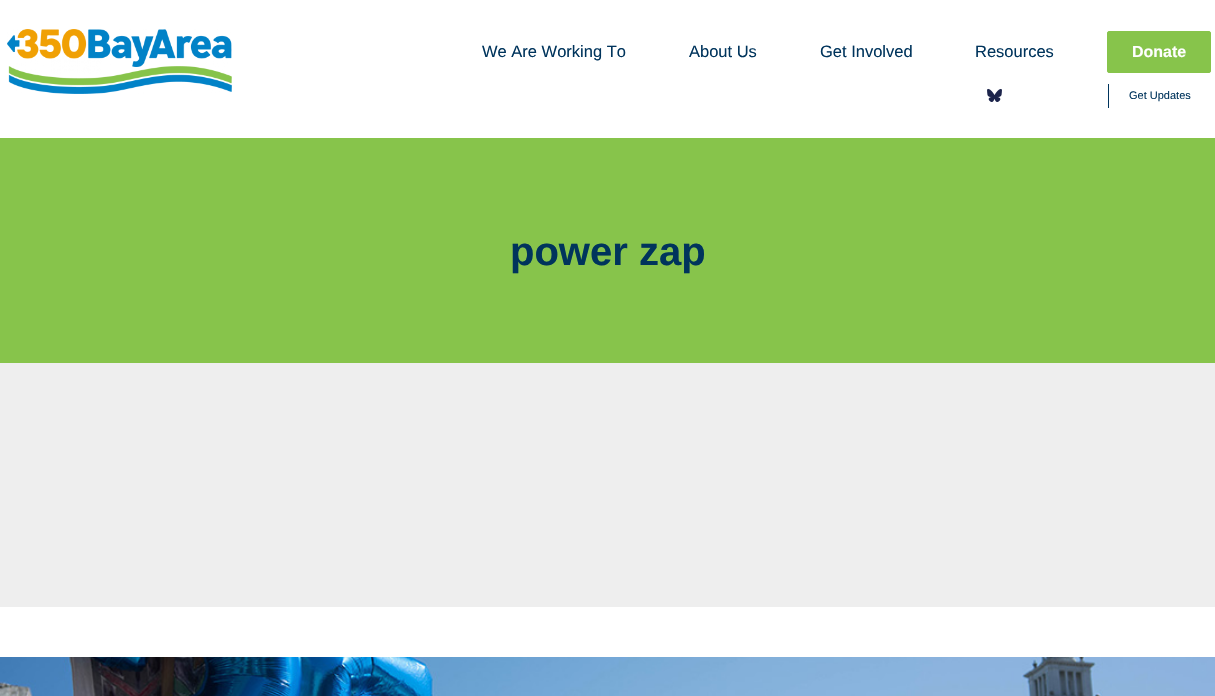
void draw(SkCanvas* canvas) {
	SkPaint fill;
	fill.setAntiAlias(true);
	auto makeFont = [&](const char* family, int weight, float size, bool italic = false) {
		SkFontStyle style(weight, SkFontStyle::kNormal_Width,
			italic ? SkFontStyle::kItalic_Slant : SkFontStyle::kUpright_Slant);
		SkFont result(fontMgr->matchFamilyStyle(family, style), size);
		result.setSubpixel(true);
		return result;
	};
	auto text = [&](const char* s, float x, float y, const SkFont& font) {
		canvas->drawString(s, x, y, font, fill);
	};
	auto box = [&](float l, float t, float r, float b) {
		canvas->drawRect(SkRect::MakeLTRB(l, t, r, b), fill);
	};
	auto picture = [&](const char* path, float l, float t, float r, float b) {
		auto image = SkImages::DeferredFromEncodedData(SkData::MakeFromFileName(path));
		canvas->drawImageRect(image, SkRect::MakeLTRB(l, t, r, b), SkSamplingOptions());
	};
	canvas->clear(0xFFFFFFFF);
	picture("image0.png", 7, 29, 232, 94);
	fill.setColor(0xFF87C44B);
	canvas->drawRoundRect(SkRect::MakeLTRB(1107.5f, 31.5f, 1210.5f, 72.5f), 1.5f, 1.5f, fill);
	fill.setStyle(SkPaint::kStroke_Style);
	fill.setStrokeWidth(1);
	canvas->drawRoundRect(SkRect::MakeLTRB(1107.5f, 31.5f, 1210.5f, 72.5f), 1.5f, 1.5f, fill);
	fill.setStyle(SkPaint::kFill_Style);
	fill.setColor(0xFF00345C);
	box(1108, 84, 1109, 108);
	picture("image1.png", 987, 88, 1002, 102);
	fill.setColor(0xFF87C44B);
	box(0, 138, 1215, 363);
	fill.setColor(0xFFEEEEEE);
	box(0, 363, 1215, 607);
	picture("image2.png", 0, 657, 1215, 696);
	auto font1 = makeFont("Liberation Sans", 400, 16.5f);
	fill.setColor(0xFF00345C);
	text("We Are Working To", 482, 57, font1);
	text("About Us", 689, 57, font1);
	text("Get Involved", 820, 57, font1);
	text("Resources", 975, 57, font1);
	auto font2 = makeFont("Liberation Sans", 700, 16);
	fill.setColor(0xFFFFFFFF);
	text("Donate", 1132, 57, font2);
	auto font3 = makeFont("Liberation Sans", 400, 11);
	fill.setColor(0xFF00345C);
	text("Get Updates", 1129, 99, font3);
	auto font4 = makeFont("Liberation Sans", 700, 40);
	text("power zap", 510, 265, font4);
}
